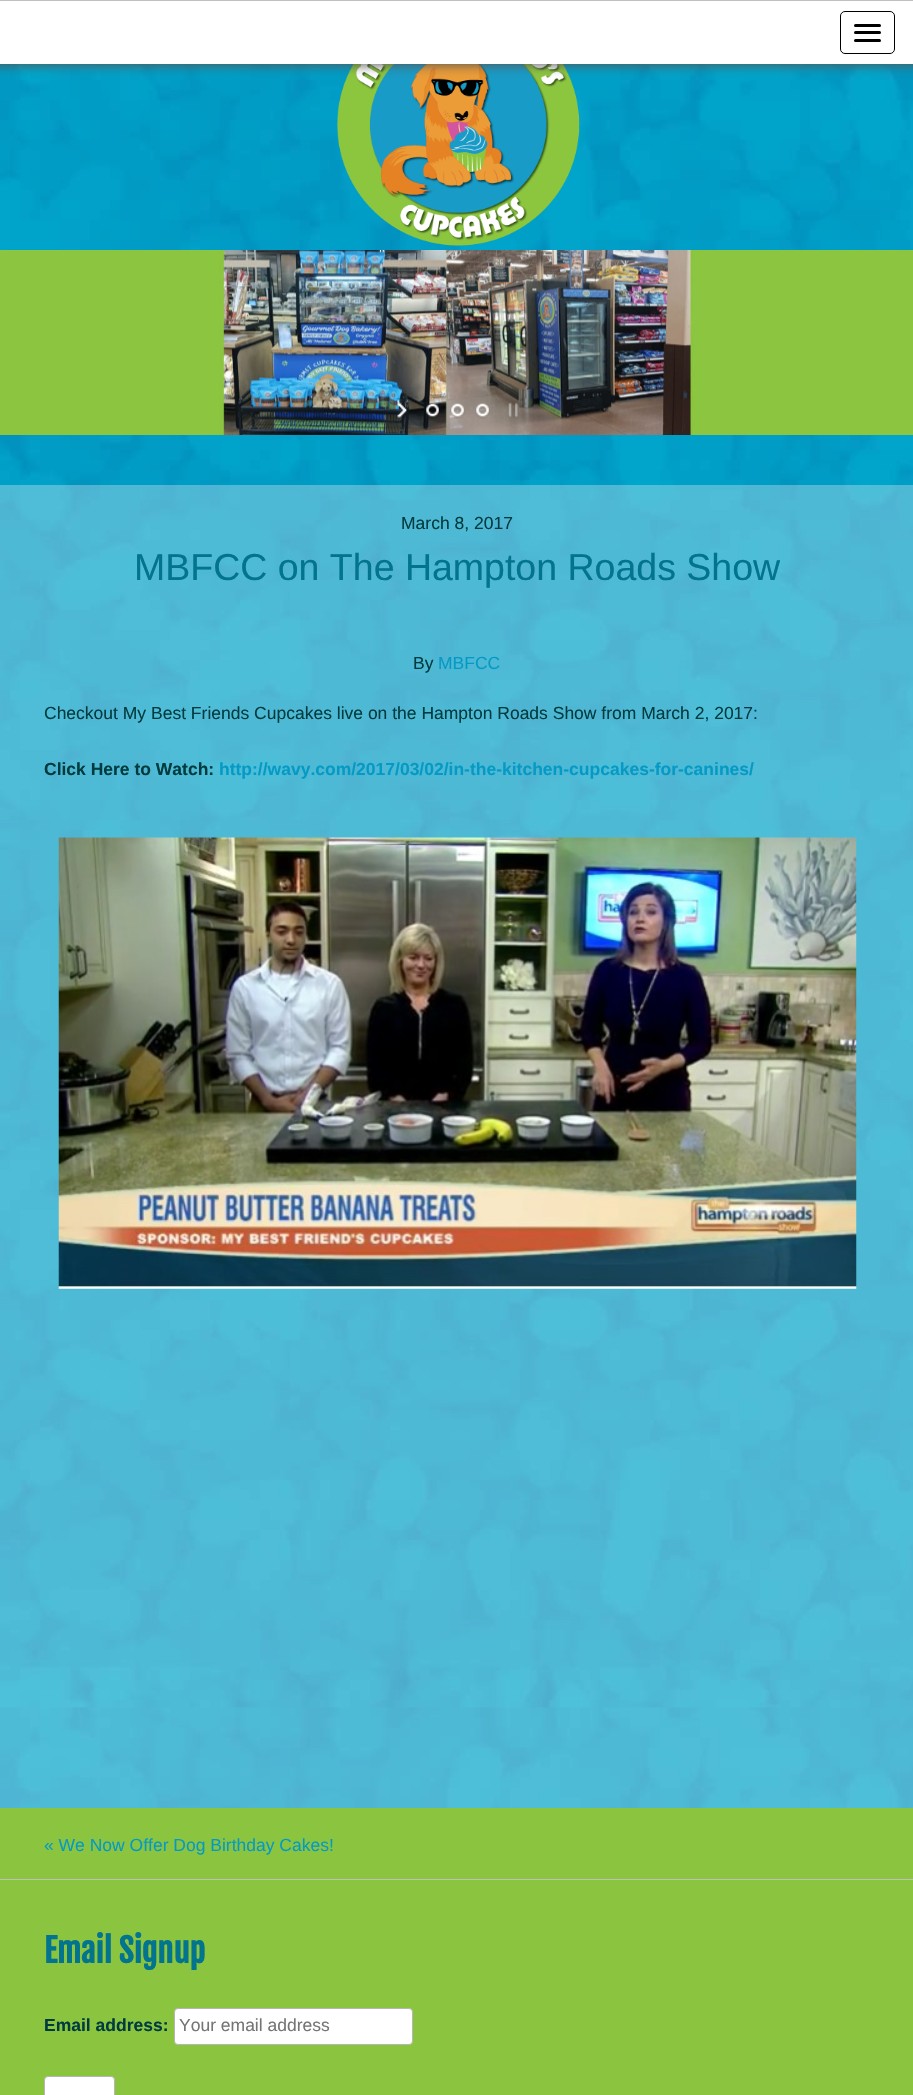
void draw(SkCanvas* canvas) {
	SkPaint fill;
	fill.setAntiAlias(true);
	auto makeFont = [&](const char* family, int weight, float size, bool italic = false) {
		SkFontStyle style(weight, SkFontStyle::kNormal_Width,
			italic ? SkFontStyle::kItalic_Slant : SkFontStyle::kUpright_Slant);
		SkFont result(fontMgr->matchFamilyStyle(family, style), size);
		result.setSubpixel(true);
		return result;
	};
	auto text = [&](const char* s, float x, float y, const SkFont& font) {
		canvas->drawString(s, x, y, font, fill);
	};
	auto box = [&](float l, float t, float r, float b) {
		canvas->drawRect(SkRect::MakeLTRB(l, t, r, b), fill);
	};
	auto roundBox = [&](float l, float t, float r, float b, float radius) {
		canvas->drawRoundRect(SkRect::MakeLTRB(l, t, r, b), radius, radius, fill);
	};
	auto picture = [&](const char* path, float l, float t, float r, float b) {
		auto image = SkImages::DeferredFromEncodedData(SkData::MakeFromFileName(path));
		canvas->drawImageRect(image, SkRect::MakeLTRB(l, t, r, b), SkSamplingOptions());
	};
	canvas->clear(0xFFFFFFFF);
	picture("image0.png", 0, 64, 913, 1808);
	picture("image1.png", 337, 64, 580, 246);
	fill.setColor(0xFF555555);
	fill.setMaskFilter(SkMaskFilter::MakeBlur(kNormal_SkBlurStyle, 5.5f));
	canvas->drawRect(SkRect::MakeLTRB(-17, -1, 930, 65), fill);
	fill.setMaskFilter(nullptr);
	fill.setColor(0xFFFFFFFF);
	box(0, 1, 913, 64);
	fill.setColor(0xFFC0C0C0);
	box(0, 0, 913, 1);
	fill.setStyle(SkPaint::kStroke_Style);
	fill.setStrokeWidth(1);
	fill.setColor(0xFF000000);
	canvas->drawRoundRect(SkRect::MakeLTRB(840.5f, 11.5f, 894.5f, 53.5f), 4.5f, 4.5f, fill);
	fill.setStyle(SkPaint::kFill_Style);
	roundBox(854, 24, 881, 27, 1.5f);
	roundBox(854, 31, 881, 34, 1.5f);
	roundBox(854, 39, 881, 42, 1.5f);
	picture("image2.png", 0, 250, 913, 435);
	picture("image3.png", 397, 402, 407, 418);
	picture("image4.png", 426, 403, 439, 417);
	picture("image5.png", 450, 403, 465, 419);
	picture("image6.png", 475, 403, 490, 419);
	picture("image7.png", 508, 402, 519, 418);
	fill.setColor(0x4FFAFAFA);
	box(0, 485, 913, 1808);
	picture("image8.png", 58, 837, 857, 1289);
	fill.setColor(0xFF8BC53F);
	box(0, 1808, 913, 2095);
	fill.setColor(0xFFC0C0C0);
	box(0, 1879, 913, 1880);
	fill.setColor(0xFFFFFFFF);
	canvas->drawRoundRect(SkRect::MakeLTRB(174.5f, 2008.5f, 412.5f, 2044.5f), 3.5f, 3.5f, fill);
	fill.setStyle(SkPaint::kStroke_Style);
	fill.setColor(0xFFB6B6B6);
	canvas->drawRoundRect(SkRect::MakeLTRB(174.5f, 2008.5f, 412.5f, 2044.5f), 3.5f, 3.5f, fill);
	fill.setStyle(SkPaint::kFill_Style);
	fill.setColor(0xFFFFFFFF);
	canvas->drawRoundRect(SkRect::MakeLTRB(44.5f, 2076.5f, 114.5f, 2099.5f), 3.5f, 3.5f, fill);
	fill.setStyle(SkPaint::kStroke_Style);
	fill.setColor(0xFFB6B6B6);
	canvas->drawRoundRect(SkRect::MakeLTRB(44.5f, 2076.5f, 114.5f, 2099.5f), 3.5f, 3.5f, fill);
	auto font1 = makeFont("Liberation Sans", 400, 17.5f);
	fill.setStyle(SkPaint::kFill_Style);
	fill.setColor(0xFF003C3F);
	text("March 8, 2017", 401, 529, font1);
	auto font2 = makeFont("Liberation Sans", 400, 37.5f);
	fill.setColor(0xFF03748E);
	text("MBFCC on The Hampton Roads Show", 134, 580, font2);
	fill.setColor(0xFF003C3F);
	text("By", 413, 669, font1);
	fill.setColor(0xFF059AC5);
	text("MBFCC", 438, 669, font1);
	fill.setColor(0xFF003C3F);
	text("Checkout My Best Friends Cupcakes live on the Hampton Roads Show from March 2, 2017:", 44, 719, font1);
	auto font3 = makeFont("Liberation Sans", 700, 17.5f);
	text("Click Here to Watch:", 44, 775, font3);
	fill.setColor(0xFF059AC5);
	text("http://wavy.com/2017/03/02/in-the-kitchen-cupcakes-for-canines/", 219, 775, font3);
	text("« We Now Offer Dog Birthday Cakes!", 44, 1851, font1);
	auto font4 = makeFont("Fjalla One", 700, 32.5f);
	fill.setColor(0xFF03748E);
	text("Email Signup", 44, 1963, font4);
	fill.setColor(0xFF003C3F);
	text("Email address:", 44, 2031, font3);
	fill.setColor(0xFF757575);
	text("Your email address", 179, 2031, font1);
}
